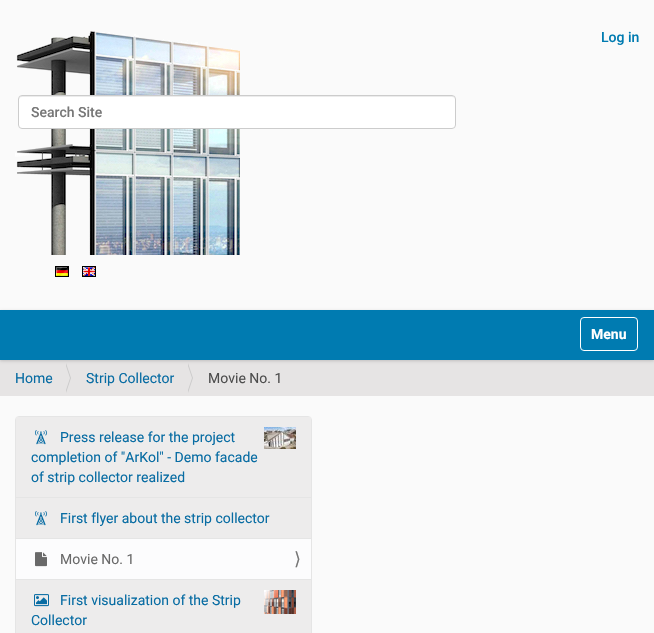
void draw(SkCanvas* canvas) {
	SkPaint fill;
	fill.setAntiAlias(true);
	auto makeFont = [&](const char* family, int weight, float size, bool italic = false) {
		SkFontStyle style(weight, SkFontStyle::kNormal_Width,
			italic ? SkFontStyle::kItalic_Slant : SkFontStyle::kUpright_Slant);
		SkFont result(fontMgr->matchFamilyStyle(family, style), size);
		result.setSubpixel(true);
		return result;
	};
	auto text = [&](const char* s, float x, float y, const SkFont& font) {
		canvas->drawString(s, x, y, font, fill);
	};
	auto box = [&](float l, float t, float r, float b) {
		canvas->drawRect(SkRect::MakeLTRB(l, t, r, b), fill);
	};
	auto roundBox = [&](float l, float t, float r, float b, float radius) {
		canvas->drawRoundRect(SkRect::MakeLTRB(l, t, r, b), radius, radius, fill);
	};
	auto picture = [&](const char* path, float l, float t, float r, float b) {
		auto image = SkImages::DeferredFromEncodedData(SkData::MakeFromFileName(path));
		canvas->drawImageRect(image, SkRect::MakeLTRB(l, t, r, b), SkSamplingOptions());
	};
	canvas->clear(0xFFFAFAFA);
	picture("image0.png", 15, 31, 240, 255);
	fill.setColor(0xFFFFFFFF);
	roundBox(18, 95, 456, 129, 4);
	fill.setColor(0xFFECECEC);
	canvas->drawPath(SkPathBuilder().moveTo(22, 97).lineTo(452, 97).cubicTo(454, 97, 455, 98, 455, 100).cubicTo(455, 98, 454, 96, 452, 96).lineTo(21, 96).lineTo(19, 98).lineTo(19, 100).cubicTo(19, 98, 20, 97, 22, 97).close().detach(), fill);
	fill.setStyle(SkPaint::kStroke_Style);
	fill.setStrokeWidth(1);
	fill.setColor(0xFFCCCCCC);
	canvas->drawRoundRect(SkRect::MakeLTRB(18.5f, 95.5f, 455.5f, 128.5f), 3.5f, 3.5f, fill);
	picture("image1.png", 55, 266, 69, 277);
	picture("image2.png", 82, 266, 96, 277);
	fill.setStyle(SkPaint::kFill_Style);
	fill.setColor(0xFFE6E4E4);
	box(0, 360, 654, 396);
	fill.setColor(0x2B000000);
	fill.setMaskFilter(SkMaskFilter::MakeBlur(kNormal_SkBlurStyle, 1.5f));
	canvas->drawRect(SkRect::MakeLTRB(0, 311, 654, 361), fill);
	fill.setMaskFilter(nullptr);
	fill.setColor(0xFF007BB1);
	box(0, 310, 654, 360);
	fill.setStyle(SkPaint::kStroke_Style);
	fill.setColor(0xFFFFFFFF);
	canvas->drawRoundRect(SkRect::MakeLTRB(580.5f, 317.5f, 637.5f, 350.5f), 3.5f, 3.5f, fill);
	fill.setStyle(SkPaint::kFill_Style);
	fill.setColor(0xFFCCCCCC);
	canvas->drawPath(SkPathBuilder().moveTo(66, 393).lineTo(66, 363).lineTo(71, 378).close().detach(), fill);
	fill.setColor(0xFFE6E4E4);
	canvas->drawPath(SkPathBuilder().moveTo(65, 393).lineTo(65, 363).lineTo(70, 378).close().detach(), fill);
	fill.setColor(0xFFCCCCCC);
	canvas->drawPath(SkPathBuilder().moveTo(188, 393).lineTo(188, 363).lineTo(193, 378).close().detach(), fill);
	fill.setColor(0xFFE6E4E4);
	canvas->drawPath(SkPathBuilder().moveTo(187, 393).lineTo(187, 363).lineTo(192, 378).close().detach(), fill);
	fill.setStyle(SkPaint::kStroke_Style);
	fill.setColor(0xFFE5E5E5);
	canvas->drawRoundRect(SkRect::MakeLTRB(15.5f, 416.5f, 311.5f, 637.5f), 3.5f, 3.5f, fill);
	fill.setStyle(SkPaint::kFill_Style);
	fill.setColor(0xFFEDECEC);
	box(16, 417, 311, 497);
	picture("image3.png", 35, 430, 47, 445);
	picture("image4.png", 264, 427, 296, 449);
	box(16, 498, 311, 538);
	fill.setColor(0xFFE5E5E5);
	box(16, 497, 311, 498);
	picture("image3.png", 35, 511, 47, 526);
	fill.setColor(0xFFFCFCFD);
	box(16, 539, 311, 579);
	fill.setColor(0xFFE5E5E5);
	box(16, 538, 311, 539);
	picture("image5.png", 35, 552, 47, 567);
	fill.setColor(0xFFEDECEC);
	box(16, 580, 311, 633);
	fill.setColor(0xFFE5E5E5);
	box(16, 579, 311, 580);
	picture("image6.png", 34, 594, 49, 607);
	picture("image7.png", 264, 590, 296, 614);
	auto font1 = makeFont("Roboto", 500, 14);
	fill.setColor(0xFF007BB1);
	text("Log in", 601, 42, font1);
	fill.setColor(0xFF777777);
	text("Search Site", 31, 117, font1);
	auto font2 = makeFont("Roboto", 700, 14);
	fill.setColor(0xFFFFFFFF);
	text("Menu", 591, 339, font2);
	auto font3 = makeFont("Roboto", 400, 14);
	fill.setColor(0xFF086CA3);
	text("Home", 15, 383, font3);
	text("Strip Collector", 86, 383, font3);
	fill.setColor(0xFF4D4D4D);
	text("Movie No. 1", 208, 383, font3);
	fill.setColor(0xFF086CA3);
	text("Press release for the project", 60, 442, font3);
	text("completion of \"ArKol\" - Demo facade", 31, 462, font3);
	text("of strip collector realized", 31, 482, font3);
	text("First flyer about the strip collector", 60, 523, font3);
	fill.setColor(0xFF696969);
	text("Movie No. 1", 60, 564, font3);
	auto font4 = makeFont("DejaVu Sans", 400, 18);
	fill.setColor(0xFF777777);
	text("⟩", 294, 565, font4);
	fill.setColor(0xFF086CA3);
	text("First visualization of the Strip", 60, 605, font3);
	text("Collector", 31, 625, font3);
}
